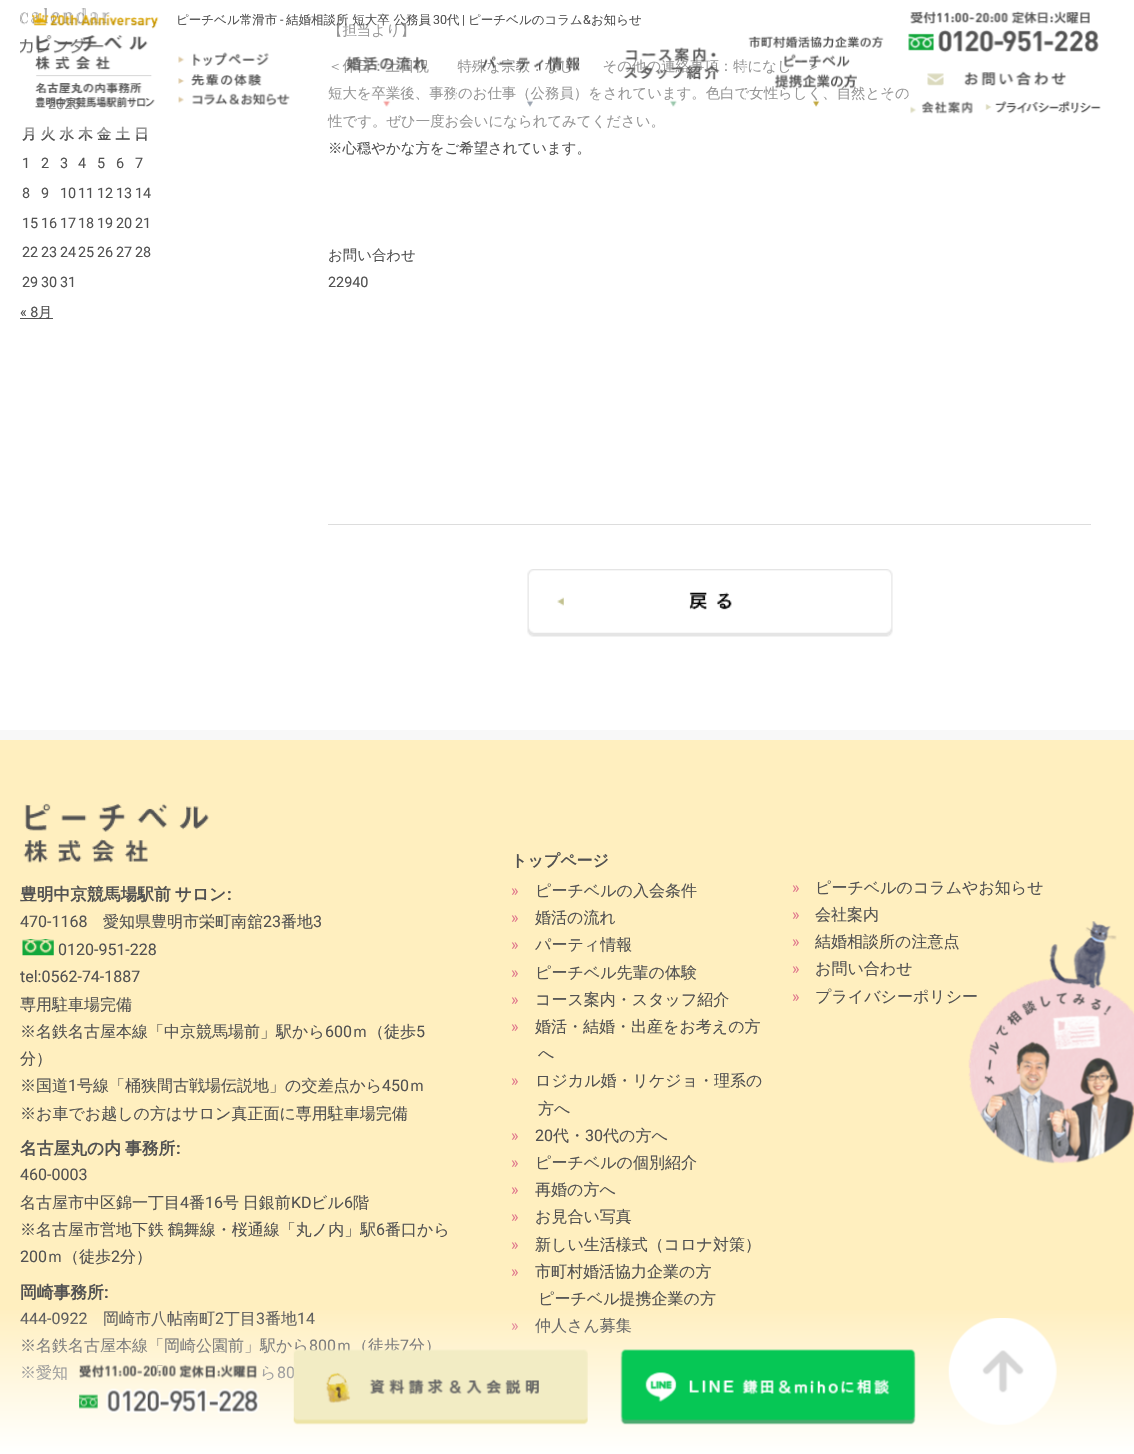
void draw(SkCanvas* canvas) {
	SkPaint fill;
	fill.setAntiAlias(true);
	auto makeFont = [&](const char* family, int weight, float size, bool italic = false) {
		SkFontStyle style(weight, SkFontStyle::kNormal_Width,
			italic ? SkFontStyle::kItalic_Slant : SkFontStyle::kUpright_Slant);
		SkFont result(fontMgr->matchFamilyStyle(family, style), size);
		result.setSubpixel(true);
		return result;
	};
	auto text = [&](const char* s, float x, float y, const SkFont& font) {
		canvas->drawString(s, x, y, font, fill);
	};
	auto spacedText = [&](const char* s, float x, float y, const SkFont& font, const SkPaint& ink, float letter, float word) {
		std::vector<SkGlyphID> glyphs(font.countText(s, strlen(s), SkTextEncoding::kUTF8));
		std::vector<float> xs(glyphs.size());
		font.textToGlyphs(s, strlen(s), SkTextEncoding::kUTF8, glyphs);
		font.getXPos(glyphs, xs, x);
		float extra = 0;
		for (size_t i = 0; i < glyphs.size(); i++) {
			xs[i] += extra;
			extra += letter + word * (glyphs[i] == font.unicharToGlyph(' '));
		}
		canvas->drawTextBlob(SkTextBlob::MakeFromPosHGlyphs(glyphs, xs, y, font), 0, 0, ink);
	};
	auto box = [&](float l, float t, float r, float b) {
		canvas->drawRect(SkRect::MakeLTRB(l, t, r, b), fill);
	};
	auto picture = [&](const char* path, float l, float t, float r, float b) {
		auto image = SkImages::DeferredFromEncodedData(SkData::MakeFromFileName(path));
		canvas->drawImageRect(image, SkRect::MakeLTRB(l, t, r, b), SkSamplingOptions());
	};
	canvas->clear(0xFFFFFFFF);
	picture("image10.png", 910, 101, 973, 114);
	picture("image11.png", 985, 101, 1101, 114);
	picture("image12.png", 20, 8, 110, 54);
	fill.setColor(0xFF525252);
	box(20, 318, 53, 319);
	fill.setColor(0xFFDDDDDD);
	box(328, 524, 1091, 525);
	picture("image13.png", 527, 569, 893, 637);
	fill.setColor(0xFFFFEFBF);
	box(0, 740, 1134, 1454);
	fill.setColor(0xFFF8F8F8);
	box(0, 730, 1134, 740);
	picture("image14.png", 23, 803, 209, 863);
	picture("image15.png", 22, 939, 54, 956);
	auto font1 = makeFont("Roboto", 400, 14.4f);
	fill.setColor(0xFF525252);
	text("2025", 48, 109, font1);
	auto font2 = makeFont("WenQuanYi Zen Hei", 700, 14.4f);
	text("月 火 水 木 金 土 日", 22, 139, font2);
	text("1", 22, 168, font1);
	text("2", 41, 168, font1);
	text("3", 60, 168, font1);
	text("4", 78, 168, font1);
	text("5", 97, 168, font1);
	text("6", 116, 168, font1);
	text("7", 135, 168, font1);
	text("8", 22, 198, font1);
	text("9", 41, 198, font1);
	text("10", 60, 198, font1);
	text("11", 78, 198, font1);
	text("12", 97, 198, font1);
	text("13", 116, 198, font1);
	text("14", 135, 198, font1);
	text("15", 22, 228, font1);
	text("16", 41, 228, font1);
	text("17", 60, 228, font1);
	text("18", 78, 228, font1);
	text("19", 97, 228, font1);
	text("20", 116, 228, font1);
	text("21", 135, 228, font1);
	text("22", 22, 257, font1);
	text("23", 41, 257, font1);
	text("24", 60, 257, font1);
	text("25", 78, 257, font1);
	text("26", 97, 257, font1);
	text("27", 116, 257, font1);
	text("28", 135, 257, font1);
	text("29", 22, 287, font1);
	text("30", 41, 287, font1);
	text("31", 60, 287, font1);
	text("« 8", 20, 317, font1);
	auto font3 = makeFont("WenQuanYi Zen Hei", 500, 14.4f);
	text("月", 38, 317, font3);
	text("【担当より】", 328, 35, font3);
	text("＜休日：土日祝　　特殊な宗教：なし　　その他の連絡事項：特になし　＞", 328, 71, font3);
	text("短大を卒業後、事務のお仕事（公務員）をされています。色白で女性らしく、自然とその", 328, 98, font3);
	text("性です。ぜひ一度お会いになられてみてください。", 328, 126, font3);
	fill.setColor(0x66FFFFFF);
	box(20, 8, 909, 135);
	picture("image3.png", 178, 93, 290, 106);
	picture("image2.png", 178, 74, 262, 86);
	picture("image1.png", 178, 52, 269, 66);
	picture("image7.png", 743, 36, 888, 107);
	picture("image6.png", 599, 47, 720, 107);
	picture("image5.png", 455, 55, 580, 107);
	picture("image4.png", 346, 56, 427, 107);
	picture("image9.png", 908, 71, 1084, 96);
	picture("image8.png", 908, 11, 1099, 53);
	auto font4 = makeFont("WenQuanYi Zen Hei", 500, 12.5f);
	fill.setColor(0xFF525252);
	text("お知らせ", 591, 24, font4);
	auto font5 = makeFont("Roboto", 400, 12.5f);
	text("&", 583, 24, font5);
	text("ピーチベルのコラム", 468, 24, font4);
	text("|", 462, 24, font5);
	text("代", 447, 24, font4);
	text("30", 433, 24, font5);
	text("結婚相談所 短大卒 公務員", 286, 24, font4);
	text("-", 280, 24, font5);
	text("ピーチベル常滑市", 176, 24, font4);
	picture("image0.png", 31, 13, 159, 108);
	text("※心穏やかな方をご希望されています。", 328, 153, font3);
	text("お問い合わせ", 328, 260, font3);
	text("22940", 328, 287, font1);
	auto font6 = makeFont("WenQuanYi Zen Hei", 700, 16.75f);
	spacedText("豊明中京競馬場駅前 サロン", 20, 900, font6, fill, 0, -1);
	auto font7 = makeFont("Roboto", 700, 16.75f);
	text(":", 227, 900, font7);
	auto font8 = makeFont("Roboto", 400, 16);
	text("470-1168", 20, 927, font8);
	auto font9 = makeFont("WenQuanYi Zen Hei", 500, 16);
	text("愛知県豊明市栄町南舘", 103, 927, font9);
	text("23", 263, 927, font8);
	text("番地", 281, 927, font9);
	text("3", 313, 927, font8);
	text("0120-951-228", 58, 955, font8);
	text("tel:0562-74-1887", 20, 982, font8);
	text("専用駐車場完備", 20, 1010, font9);
	text("※名鉄名古屋本線「中京競馬場前」駅から", 20, 1037, font9);
	text("600", 325, 1037, font8);
	text("ｍ（徒歩", 352, 1037, font9);
	text("5", 416, 1037, font8);
	text("分）", 20, 1064, font9);
	text("※国道", 20, 1091, font9);
	text("1", 68, 1091, font8);
	text("号線「桶狭間古戦場伝説地」の交差点から", 77, 1091, font9);
	text("450", 382, 1091, font8);
	text("ｍ", 409, 1091, font9);
	text("※お車でお越しの方はサロン真正面に専用駐車場完備", 20, 1119, font9);
	spacedText("名古屋丸の内 事務所", 20, 1154, font6, fill, 0, -1);
	text(":", 176, 1154, font7);
	text("460-0003", 20, 1180, font8);
	text("名古屋市中区錦一丁目", 20, 1208, font9);
	text("4", 180, 1208, font8);
	text("番", 189, 1208, font9);
	text("16", 205, 1208, font8);
	spacedText("号 日銀前", 223, 1208, font9, fill, 0, -1);
	text("KD", 291, 1208, font8);
	text("ビル", 311, 1208, font9);
	text("6", 344, 1208, font8);
	text("階", 353, 1208, font9);
	spacedText("※名古屋市営地下鉄 鶴舞線・桜通線「丸ノ内」駅", 20, 1235, font9, fill, 0, -1);
	text("6", 376, 1235, font8);
	text("番口から", 385, 1235, font9);
	text("200", 20, 1262, font8);
	text("ｍ（徒歩", 47, 1262, font9);
	text("2", 111, 1262, font8);
	text("分）", 120, 1262, font9);
	text("岡崎事務所", 20, 1298, font6);
	text(":", 104, 1298, font7);
	text("444-0922", 20, 1324, font8);
	text("岡崎市八帖南町", 103, 1324, font9);
	text("2", 215, 1324, font8);
	text("丁目", 224, 1324, font9);
	text("3", 256, 1324, font8);
	text("番地", 265, 1324, font9);
	text("14", 297, 1324, font8);
	text("※名鉄名古屋本線「岡崎公園前」駅から", 20, 1351, font9);
	text("800", 309, 1351, font8);
	text("ｍ（徒歩", 336, 1351, font9);
	text("7", 400, 1351, font8);
	text("分）", 409, 1351, font9);
	text("※愛知", 20, 1378, font9);
	text("「", 148, 1378, font9);
	text("ら", 260, 1378, font9);
	text("80", 277, 1378, font8);
	auto font10 = makeFont("WenQuanYi Zen Hei", 700, 16);
	text("トップページ", 511, 866, font10);
	fill.setColor(0xFFE0768C);
	text("»", 511, 896, font8);
	fill.setColor(0xFF525252);
	text("ピーチベルの入会条件", 535, 896, font9);
	fill.setColor(0xFFE0768C);
	text("»", 511, 923, font8);
	fill.setColor(0xFF525252);
	text("婚活の流れ", 535, 923, font9);
	fill.setColor(0xFFE0768C);
	text("»", 511, 950, font8);
	fill.setColor(0xFF525252);
	text("パーティ情報", 535, 950, font9);
	fill.setColor(0xFFE0768C);
	text("»", 511, 978, font8);
	fill.setColor(0xFF525252);
	text("ピーチベル先輩の体験", 535, 978, font9);
	fill.setColor(0xFFE0768C);
	text("»", 511, 1005, font8);
	fill.setColor(0xFF525252);
	text("コース案内・スタッフ紹介", 535, 1005, font9);
	fill.setColor(0xFFE0768C);
	text("»", 511, 1032, font8);
	fill.setColor(0xFF525252);
	text("婚活・結婚・出産をお考えの方", 535, 1032, font9);
	text("へ", 538, 1059, font9);
	fill.setColor(0xFFE0768C);
	text("»", 511, 1086, font8);
	fill.setColor(0xFF525252);
	text("ロジカル婚・リケジョ・理系の", 535, 1086, font9);
	text("方へ", 538, 1114, font9);
	fill.setColor(0xFFE0768C);
	text("»", 511, 1141, font8);
	fill.setColor(0xFF525252);
	text("20", 535, 1141, font8);
	text("代・", 553, 1141, font9);
	text("30", 585, 1141, font8);
	text("代の方へ", 603, 1141, font9);
	fill.setColor(0xFFE0768C);
	text("»", 511, 1168, font8);
	fill.setColor(0xFF525252);
	text("ピーチベルの個別紹介", 535, 1168, font9);
	fill.setColor(0xFFE0768C);
	text("»", 511, 1195, font8);
	fill.setColor(0xFF525252);
	text("再婚の方へ", 535, 1195, font9);
	fill.setColor(0xFFE0768C);
	text("»", 511, 1222, font8);
	fill.setColor(0xFF525252);
	text("お見合い写真", 535, 1222, font9);
	fill.setColor(0xFFE0768C);
	text("»", 511, 1250, font8);
	fill.setColor(0xFF525252);
	text("新しい生活様式（コロナ対策）", 535, 1250, font9);
	fill.setColor(0xFFE0768C);
	text("»", 511, 1277, font8);
	fill.setColor(0xFF525252);
	text("市町村婚活協力企業の方", 535, 1277, font9);
	text("ピーチベル提携企業の方", 538, 1304, font9);
	fill.setColor(0xFFE0768C);
	text("»", 511, 1331, font8);
	fill.setColor(0xFF525252);
	text("仲人さん募集", 535, 1331, font9);
	fill.setColor(0xFFE0768C);
	text("»", 792, 893, font8);
	fill.setColor(0xFF525252);
	text("ピーチベルのコラムやお知らせ", 815, 893, font9);
	fill.setColor(0xFFE0768C);
	text("»", 792, 920, font8);
	fill.setColor(0xFF525252);
	text("会社案内", 815, 920, font9);
	fill.setColor(0xFFE0768C);
	text("»", 792, 947, font8);
	fill.setColor(0xFF525252);
	text("結婚相談所の注意点", 815, 947, font9);
	fill.setColor(0xFFE0768C);
	text("»", 792, 974, font8);
	fill.setColor(0xFF525252);
	text("お問い合わせ", 815, 974, font9);
	fill.setColor(0xFFE0768C);
	text("»", 792, 1002, font8);
	fill.setColor(0xFF525252);
	text("プライバシーポリシー", 815, 1002, font9);
	picture("image16.png", 968, 921, 1134, 1164);
	{
		const SkColor colors[] = {0x00FFFFFF, 0xFFFFFFFF};
		const float stops[] = {0, 1};
		const SkPoint ends[] = {{568, 1305}, {568, 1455}};
		fill.setShader(SkGradientShader::MakeLinear(ends, colors, stops, 2, SkTileMode::kClamp));
		fill.setAlpha(255);
	}
	box(0, 1310, 1134, 1454);
	picture("image17.png", 79, 1364, 260, 1414);
	picture("image18.png", 293, 1349, 588, 1425);
	picture("image19.png", 620, 1349, 916, 1425);
	picture("image20.png", 948, 1318, 1057, 1425);
}
